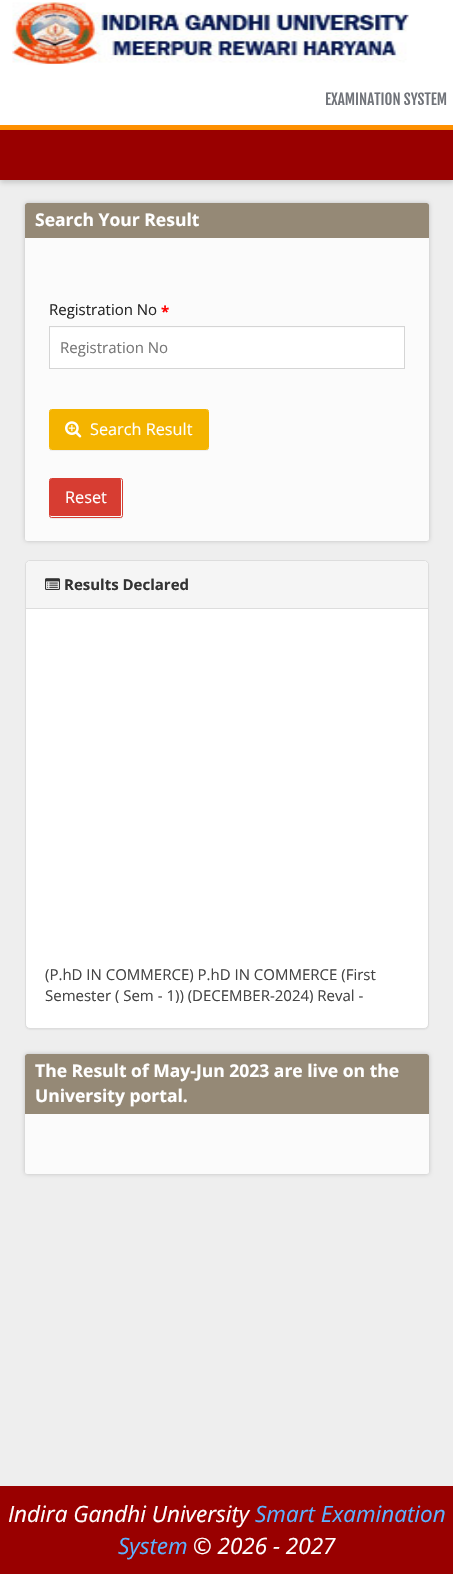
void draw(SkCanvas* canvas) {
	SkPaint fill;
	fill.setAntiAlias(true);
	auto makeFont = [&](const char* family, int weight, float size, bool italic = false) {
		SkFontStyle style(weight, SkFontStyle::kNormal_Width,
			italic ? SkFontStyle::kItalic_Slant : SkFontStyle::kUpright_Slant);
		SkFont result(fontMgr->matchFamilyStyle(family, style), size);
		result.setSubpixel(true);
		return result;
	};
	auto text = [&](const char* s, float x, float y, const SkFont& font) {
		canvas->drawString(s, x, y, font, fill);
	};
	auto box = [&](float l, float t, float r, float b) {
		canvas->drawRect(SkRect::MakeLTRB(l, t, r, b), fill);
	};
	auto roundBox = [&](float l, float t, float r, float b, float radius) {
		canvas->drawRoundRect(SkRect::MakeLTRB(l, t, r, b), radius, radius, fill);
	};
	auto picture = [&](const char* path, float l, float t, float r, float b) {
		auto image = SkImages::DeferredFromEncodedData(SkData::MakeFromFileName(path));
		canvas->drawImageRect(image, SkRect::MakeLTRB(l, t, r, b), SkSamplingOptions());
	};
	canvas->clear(0xFFEEEEEE);
	fill.setColor(0xFFFF9000);
	box(0, 125, 453, 130);
	fill.setColor(0x26000000);
	fill.setMaskFilter(SkMaskFilter::MakeBlur(kNormal_SkBlurStyle, 2.5f));
	canvas->drawRect(SkRect::MakeLTRB(0, 133, 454, 183), fill);
	fill.setMaskFilter(nullptr);
	fill.setColor(0xFFFFFFFF);
	box(0, 0, 453, 125);
	picture("image0.png", 12, 2, 410, 65);
	fill.setColor(0xFF990000);
	box(0, 130, 453, 180);
	fill.setColor(0x33000000);
	fill.setMaskFilter(SkMaskFilter::MakeBlur(kNormal_SkBlurStyle, 2));
	canvas->drawRoundRect(SkRect::MakeLTRB(25, 203, 429, 541), 2.5f, 2.5f, fill);
	fill.setMaskFilter(nullptr);
	fill.setColor(0xFFFBFBFB);
	roundBox(25, 203, 429, 541, 2.5f);
	fill.setColor(0xFF958976);
	canvas->drawPath(SkPathBuilder().moveTo(27.5f, 203).lineTo(426.5f, 203).cubicTo(428, 203, 429, 204, 429, 205.5f).lineTo(429, 238).lineTo(25, 238).lineTo(25, 205.5f).cubicTo(25, 204, 26, 203, 27.5f, 203).close().detach(), fill);
	fill.setColor(0xFFFFFFFF);
	box(50, 328, 404, 368);
	fill.setStyle(SkPaint::kStroke_Style);
	fill.setStrokeWidth(1);
	fill.setColor(0xFFD5D5D5);
	canvas->drawRect(SkRect::MakeLTRB(49.5f, 326.5f, 404.5f, 368.5f), fill);
	fill.setStyle(SkPaint::kFill_Style);
	fill.setColor(0xFFEEEEEE);
	canvas->drawPath(SkPathBuilder().moveTo(49, 449).cubicTo(49, 450, 50, 451, 52, 451).lineTo(206, 451).cubicTo(208, 451, 209, 450, 209, 448).lineTo(209, 411).lineTo(209, 448).cubicTo(209, 449, 208, 450, 206, 450).lineTo(51, 450).cubicTo(50, 450, 49, 449, 49, 449).close().detach(), fill);
	fill.setColor(0xFFF4B400);
	roundBox(50, 410, 208, 449, 1);
	fill.setStyle(SkPaint::kStroke_Style);
	canvas->drawRoundRect(SkRect::MakeLTRB(49.5f, 409.5f, 208.5f, 449.5f), 2, 2, fill);
	picture("image1.png", 65, 421, 82, 438);
	fill.setStyle(SkPaint::kFill_Style);
	fill.setColor(0xFFEEEEEE);
	canvas->drawPath(SkPathBuilder().moveTo(49, 516).cubicTo(49, 517, 50, 519, 51, 519).lineTo(98, 519).cubicTo(128, 519, 123, 525, 123, 499).cubicTo(123, 496, 124, 482, 122, 480).cubicTo(122, 485, 123, 515, 122, 517).lineTo(120, 518).lineTo(51, 517).close().detach(), fill);
	fill.setColor(0xFFD73D32);
	roundBox(50, 479, 121, 516, 1);
	fill.setStyle(SkPaint::kStroke_Style);
	canvas->drawRoundRect(SkRect::MakeLTRB(49.5f, 478.5f, 122.5f, 517.5f), 2, 2, fill);
	fill.setStyle(SkPaint::kFill_Style);
	fill.setColor(0x0D000000);
	fill.setMaskFilter(SkMaskFilter::MakeBlur(kNormal_SkBlurStyle, 0.5f));
	canvas->drawRoundRect(SkRect::MakeLTRB(25, 561, 429, 1030), 5, 5, fill);
	fill.setMaskFilter(nullptr);
	fill.setColor(0xFFFFFFFF);
	canvas->drawRoundRect(SkRect::MakeLTRB(25.5f, 560.5f, 428.5f, 1028.5f), 4.5f, 4.5f, fill);
	fill.setStyle(SkPaint::kStroke_Style);
	fill.setColor(0xFFDDDDDD);
	canvas->drawRoundRect(SkRect::MakeLTRB(25.5f, 560.5f, 428.5f, 1028.5f), 4.5f, 4.5f, fill);
	fill.setStyle(SkPaint::kFill_Style);
	fill.setColor(0xFFF5F5F5);
	canvas->drawPath(SkPathBuilder().moveTo(30, 561).lineTo(424, 561).cubicTo(426, 561, 428, 563, 428, 565).lineTo(428, 609).lineTo(26, 609).lineTo(26, 565).cubicTo(26, 563, 28, 561, 30, 561).close().detach(), fill);
	fill.setColor(0xFFDDDDDD);
	box(26, 608, 428, 609);
	picture("image2.png", 45, 578, 60, 590);
	fill.setColor(0x33000000);
	fill.setMaskFilter(SkMaskFilter::MakeBlur(kNormal_SkBlurStyle, 2));
	canvas->drawRoundRect(SkRect::MakeLTRB(25, 1054, 429, 1174), 2.5f, 2.5f, fill);
	fill.setMaskFilter(nullptr);
	fill.setColor(0xFFFBFBFB);
	roundBox(25, 1054, 429, 1174, 2.5f);
	fill.setColor(0xFF958976);
	canvas->drawPath(SkPathBuilder().moveTo(27.5f, 1054).lineTo(426.5f, 1054).cubicTo(428, 1054, 429, 1055, 429, 1056.5f).lineTo(429, 1114).lineTo(25, 1114).lineTo(25, 1056.5f).cubicTo(25, 1055, 26, 1054, 27.5f, 1054).close().detach(), fill);
	fill.setColor(0xFF990000);
	box(0, 1486, 453, 1574);
	auto font1 = makeFont("Fjalla One", 400, 15);
	fill.setColor(0xFF707379);
	text("EXAMINATION SYSTEM", 325, 105, font1);
	auto font2 = makeFont("Open Sans", 700, 17.5f);
	fill.setColor(0xFFFFFFFF);
	text("Search Your Result", 35, 226, font2);
	auto font3 = makeFont("Open Sans", 400, 15);
	fill.setColor(0xFF262626);
	text("Registration No", 49, 315, font3);
	auto font4 = makeFont("Open Sans", 700, 15);
	fill.setColor(0xFFFF0000);
	text("*", 161, 317, font4);
	fill.setColor(0xFF777777);
	text("Registration No", 60, 353, font3);
	auto font5 = makeFont("Open Sans", 400, 16.25f);
	fill.setColor(0xFFFFFFFF);
	text("Search Result", 90, 435, font5);
	text("Reset", 65, 503, font5);
	fill.setColor(0xFF333333);
	text("Results Declared", 64, 590, font4);
	fill.setColor(0xFF444444);
	text("(P.hD IN COMMERCE) P.hD IN COMMERCE (First", 45, 980, font3);
	canvas->save();
	canvas->clipRect(SkRect::MakeLTRB(45, 628, 409, 1003));
	text("Semester ( Sem - 1)) (DECEMBER-2024) Reval -", 45, 1001, font3);
	canvas->restore();
	fill.setColor(0xFFFFFFFF);
	text("The Result of May-Jun 2023 are live on the", 35, 1077, font2);
	text("University portal.", 35, 1102, font2);
	auto font6 = makeFont("Open Sans", 400, 22.5f, true);
	text("Indira Gandhi University", 8, 1522, font6);
	fill.setColor(0xFF5DB2FF);
	text("Smart Examination", 255, 1522, font6);
	text("System", 118, 1554, font6);
	fill.setColor(0xFFFFFFFF);
	text("© 2026 - 2027", 193, 1554, font6);
}
